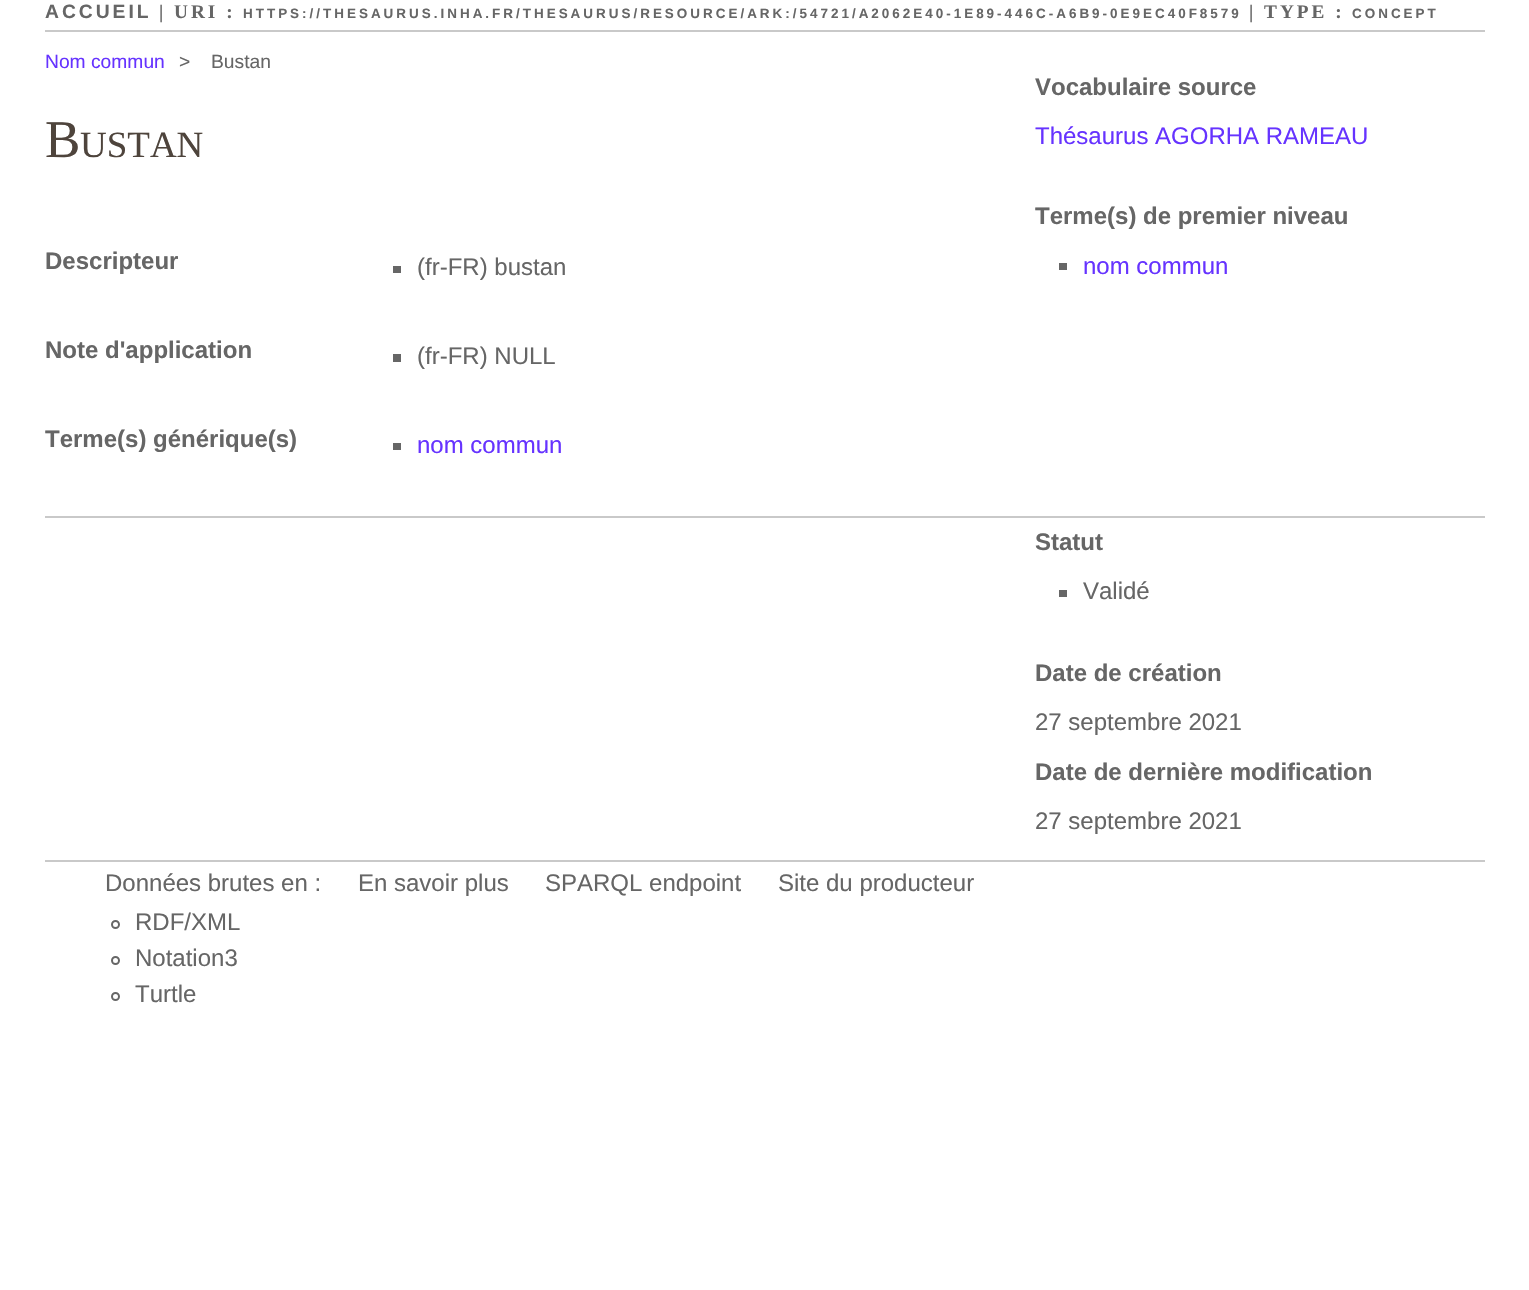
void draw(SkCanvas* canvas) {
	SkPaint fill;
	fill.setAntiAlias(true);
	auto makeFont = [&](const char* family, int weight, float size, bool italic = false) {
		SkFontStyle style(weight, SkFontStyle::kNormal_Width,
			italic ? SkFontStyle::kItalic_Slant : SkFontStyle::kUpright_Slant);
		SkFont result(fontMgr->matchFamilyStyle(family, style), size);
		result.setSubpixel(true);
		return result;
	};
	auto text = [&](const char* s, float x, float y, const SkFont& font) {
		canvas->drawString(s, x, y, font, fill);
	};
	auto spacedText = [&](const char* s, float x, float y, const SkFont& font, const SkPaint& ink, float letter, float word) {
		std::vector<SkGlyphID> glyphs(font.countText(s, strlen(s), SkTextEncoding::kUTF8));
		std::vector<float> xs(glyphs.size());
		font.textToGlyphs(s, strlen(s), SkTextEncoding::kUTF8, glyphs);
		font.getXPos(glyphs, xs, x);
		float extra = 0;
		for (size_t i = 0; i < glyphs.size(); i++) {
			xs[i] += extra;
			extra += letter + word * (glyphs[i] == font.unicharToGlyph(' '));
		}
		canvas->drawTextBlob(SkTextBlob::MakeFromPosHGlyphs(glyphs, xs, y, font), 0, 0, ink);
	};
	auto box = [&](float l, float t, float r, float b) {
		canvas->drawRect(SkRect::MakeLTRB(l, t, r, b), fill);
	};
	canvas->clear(0xFFFFFFFF);
	fill.setColor(0xFFC9C9C9);
	box(45, 30, 1485, 32);
	fill.setColor(0xFF666666);
	box(393, 266, 401, 273);
	box(393, 354, 401, 362);
	box(393, 443, 401, 450);
	box(1059, 263, 1067, 270);
	fill.setColor(0xFFC9C9C9);
	box(45, 516, 1485, 518);
	fill.setColor(0xFF666666);
	box(1059, 590, 1067, 597);
	fill.setColor(0xFFC9C9C9);
	box(45, 860, 1485, 862);
	fill.setStyle(SkPaint::kStroke_Style);
	fill.setStrokeWidth(2);
	fill.setColor(0xFF666666);
	canvas->drawCircle(115.5f, 924.5f, 3.5f, fill);
	canvas->drawCircle(115.5f, 960.5f, 3.5f, fill);
	canvas->drawCircle(115.5f, 996.5f, 3.5f, fill);
	auto font1 = makeFont("Liberation Sans", 700, 19.25f);
	fill.setStyle(SkPaint::kFill_Style);
	spacedText("ACCUEIL", 45, 18, font1, fill, 3, 0);
	auto font2 = makeFont("Liberation Serif", 700, 19.25f);
	spacedText("| URI :", 159, 18, font2, fill, 3, 0);
	auto font3 = makeFont("Liberation Sans", 700, 13.45f);
	spacedText("HTTPS://THESAURUS.INHA.FR/THESAURUS/RESOURCE/ARK:/54721/A2062E40-1E89-446C-A6B9-0E9EC40F8579", 243, 18, font3, fill, 3, 0);
	spacedText("| TYPE :", 1249, 18, font2, fill, 3, 0);
	spacedText("CONCEPT", 1352, 18, font3, fill, 3, 0);
	auto font4 = makeFont("Liberation Sans", 400, 19.25f);
	fill.setColor(0xFF6633FF);
	text("Nom commun", 45, 68, font4);
	fill.setColor(0xFF666666);
	text(">", 179, 68, font4);
	text("Bustan", 211, 68, font4);
	auto font5 = makeFont("Liberation Serif", 400, 53);
	fill.setColor(0xFF4E443C);
	text("B", 45, 157, font5);
	auto font6 = makeFont("Liberation Serif", 400, 37);
	text("USTAN", 80, 157, font6);
	auto font7 = makeFont("Liberation Sans", 700, 24);
	fill.setColor(0xFF666666);
	text("Descripteur", 45, 269, font7);
	auto font8 = makeFont("Liberation Sans", 400, 24);
	text("(fr-FR) bustan", 417, 275, font8);
	text("Note d'application", 45, 358, font7);
	text("(fr-FR) NULL", 417, 364, font8);
	text("Terme(s) générique(s)", 45, 447, font7);
	fill.setColor(0xFF6633FF);
	text("nom commun", 417, 453, font8);
	fill.setColor(0xFF666666);
	text("Vocabulaire source", 1035, 95, font7);
	fill.setColor(0xFF6633FF);
	text("Thésaurus AGORHA RAMEAU", 1035, 144, font8);
	fill.setColor(0xFF666666);
	text("Terme(s) de premier niveau", 1035, 224, font7);
	fill.setColor(0xFF6633FF);
	text("nom commun", 1083, 274, font8);
	fill.setColor(0xFF666666);
	text("Statut", 1035, 550, font7);
	text("Validé", 1083, 599, font8);
	text("Date de création", 1035, 681, font7);
	text("27 septembre 2021", 1035, 730, font8);
	text("Date de dernière modification", 1035, 780, font7);
	text("27 septembre 2021", 1035, 829, font8);
	text("Données brutes en :", 105, 891, font8);
	text("RDF/XML", 135, 930, font8);
	text("Notation3", 135, 966, font8);
	text("Turtle", 135, 1002, font8);
	text("En savoir plus", 358, 891, font8);
	text("SPARQL endpoint", 545, 891, font8);
	text("Site du producteur", 778, 891, font8);
}
